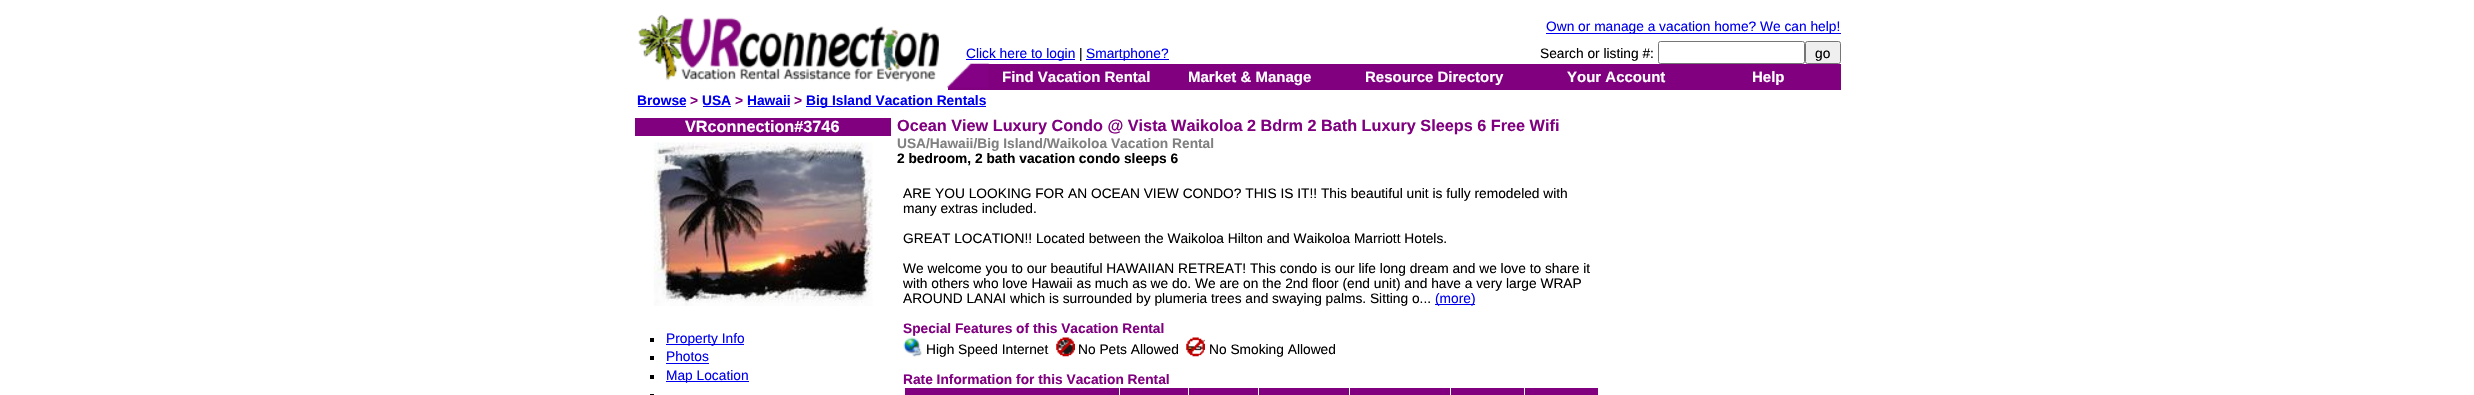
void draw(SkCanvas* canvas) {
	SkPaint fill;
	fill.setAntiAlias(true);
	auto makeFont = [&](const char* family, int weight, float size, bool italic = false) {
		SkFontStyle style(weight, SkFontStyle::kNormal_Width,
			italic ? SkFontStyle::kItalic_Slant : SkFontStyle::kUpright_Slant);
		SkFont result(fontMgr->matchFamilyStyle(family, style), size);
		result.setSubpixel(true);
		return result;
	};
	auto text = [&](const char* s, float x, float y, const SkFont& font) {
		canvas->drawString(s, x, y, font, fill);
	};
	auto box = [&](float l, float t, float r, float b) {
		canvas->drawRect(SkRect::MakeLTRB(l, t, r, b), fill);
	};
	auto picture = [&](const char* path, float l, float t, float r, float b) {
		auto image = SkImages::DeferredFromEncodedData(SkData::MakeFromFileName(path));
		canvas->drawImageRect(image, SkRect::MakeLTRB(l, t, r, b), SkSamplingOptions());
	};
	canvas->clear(0xFFFFFFFF);
	picture("image0.png", 638, 14, 940, 82);
	fill.setColor(0xFF0000EE);
	box(1546, 33, 1841, 34);
	box(966, 59, 1075, 60);
	box(1086, 59, 1169, 60);
	fill.setStyle(SkPaint::kStroke_Style);
	fill.setStrokeWidth(1);
	fill.setColor(0xFF767676);
	canvas->drawRoundRect(SkRect::MakeLTRB(1658.5f, 41.5f, 1804.5f, 63.5f), 2, 2, fill);
	fill.setStyle(SkPaint::kFill_Style);
	fill.setColor(0xFFEFEFEF);
	canvas->drawRoundRect(SkRect::MakeLTRB(1805.5f, 41.5f, 1840.5f, 63.5f), 2, 2, fill);
	fill.setStyle(SkPaint::kStroke_Style);
	fill.setColor(0xFF767676);
	canvas->drawRoundRect(SkRect::MakeLTRB(1805.5f, 41.5f, 1840.5f, 63.5f), 2, 2, fill);
	fill.setStyle(SkPaint::kFill_Style);
	fill.setColor(0xFF800080);
	box(948, 64, 1841, 90);
	picture("image1.png", 947, 63, 989, 88);
	fill.setColor(0xFF0000EE);
	box(638, 106, 686, 107);
	box(703, 106, 731, 107);
	box(748, 106, 790, 107);
	box(806, 106, 986, 107);
	fill.setColor(0xFF800080);
	box(635, 118, 891, 136);
	picture("image2.png", 653, 142, 873, 306);
	fill.setColor(0xFF000000);
	box(650, 338, 654, 342);
	fill.setColor(0xFF0000EE);
	box(666, 344, 744, 345);
	fill.setColor(0xFF000000);
	box(650, 356, 654, 360);
	fill.setColor(0xFF0000EE);
	box(666, 363, 709, 364);
	fill.setColor(0xFF000000);
	box(650, 375, 654, 379);
	fill.setColor(0xFF0000EE);
	box(666, 381, 749, 382);
	fill.setColor(0xFF000000);
	box(650, 394, 654, 395);
	fill.setColor(0xFF0000EE);
	box(1435, 304, 1475, 305);
	picture("image3.png", 903, 337, 922, 357);
	picture("image4.png", 1056, 337, 1075, 357);
	picture("image5.png", 1186, 337, 1205, 357);
	fill.setColor(0xFF800080);
	box(905, 388, 1119, 395);
	box(1120, 388, 1188, 395);
	box(1189, 388, 1258, 395);
	box(1259, 388, 1349, 395);
	box(1350, 388, 1450, 395);
	box(1451, 388, 1524, 395);
	box(1525, 388, 1598, 395);
	auto font1 = makeFont("Liberation Sans", 400, 13.75f);
	fill.setColor(0xFF0000EE);
	text("Own or manage a vacation home? We can help!", 1546, 31, font1);
	text("Click here to login", 966, 58, font1);
	fill.setColor(0xFF000000);
	text("|", 1079, 58, font1);
	fill.setColor(0xFF0000EE);
	text("Smartphone?", 1086, 58, font1);
	fill.setColor(0xFF000000);
	text("Search or listing #:", 1540, 58, font1);
	text("go", 1815, 58, font1);
	auto font2 = makeFont("Liberation Sans", 700, 15);
	fill.setColor(0xFFFFFFFF);
	text("Find Vacation Rental", 1002, 82, font2);
	text("Market & Manage", 1188, 82, font2);
	text("Resource Directory", 1365, 82, font2);
	text("Your Account", 1567, 82, font2);
	text("Help", 1752, 82, font2);
	auto font3 = makeFont("Liberation Sans", 700, 13.75f);
	fill.setColor(0xFF0000EE);
	text("Browse", 637, 105, font3);
	fill.setColor(0xFF800080);
	text(">", 690, 105, font3);
	fill.setColor(0xFF0000EE);
	text("USA", 702, 105, font3);
	fill.setColor(0xFF800080);
	text(">", 735, 105, font3);
	fill.setColor(0xFF0000EE);
	text("Hawaii", 747, 105, font3);
	fill.setColor(0xFF800080);
	text(">", 794, 105, font3);
	fill.setColor(0xFF0000EE);
	text("Big Island Vacation Rentals", 806, 105, font3);
	auto font4 = makeFont("Liberation Sans", 700, 16.25f);
	fill.setColor(0xFFFFFFFF);
	text("VRconnection#3746", 685, 132, font4);
	fill.setColor(0xFF0000EE);
	text("Property Info", 666, 343, font1);
	text("Photos", 666, 361, font1);
	text("Map Location", 666, 380, font1);
	fill.setColor(0xFF800080);
	text("Ocean View Luxury Condo @ Vista Waikoloa 2 Bdrm 2 Bath Luxury Sleeps 6 Free Wifi", 897, 131, font4);
	fill.setColor(0xFF808080);
	text("USA/Hawaii/Big Island/Waikoloa Vacation Rental", 897, 148, font3);
	fill.setColor(0xFF000000);
	text("2 bedroom, 2 bath vacation condo sleeps 6", 897, 163, font3);
	text("ARE YOU LOOKING FOR AN OCEAN VIEW CONDO? THIS IS IT!! This beautiful unit is fully remodeled with", 903, 198, font1);
	text("many extras included.", 903, 213, font1);
	text("GREAT LOCATION!! Located between the Waikoloa Hilton and Waikoloa Marriott Hotels.", 903, 243, font1);
	text("We welcome you to our beautiful HAWAIIAN RETREAT! This condo is our life long dream and we love to share it", 903, 273, font1);
	text("with others who love Hawaii as much as we do. We are on the 2nd floor (end unit) and have a very large WRAP", 903, 288, font1);
	text("AROUND LANAI which is surrounded by plumeria trees and swaying palms. Sitting o...", 903, 303, font1);
	fill.setColor(0xFF0000EE);
	text("(more)", 1435, 303, font1);
	fill.setColor(0xFF800080);
	text("Special Features of this Vacation Rental", 903, 333, font3);
	fill.setColor(0xFF000000);
	text("High Speed Internet", 926, 354, font1);
	text("No Pets Allowed", 1078, 354, font1);
	text("No Smoking Allowed", 1209, 354, font1);
	fill.setColor(0xFF800080);
	text("Rate Information for this Vacation Rental", 903, 384, font3);
}
